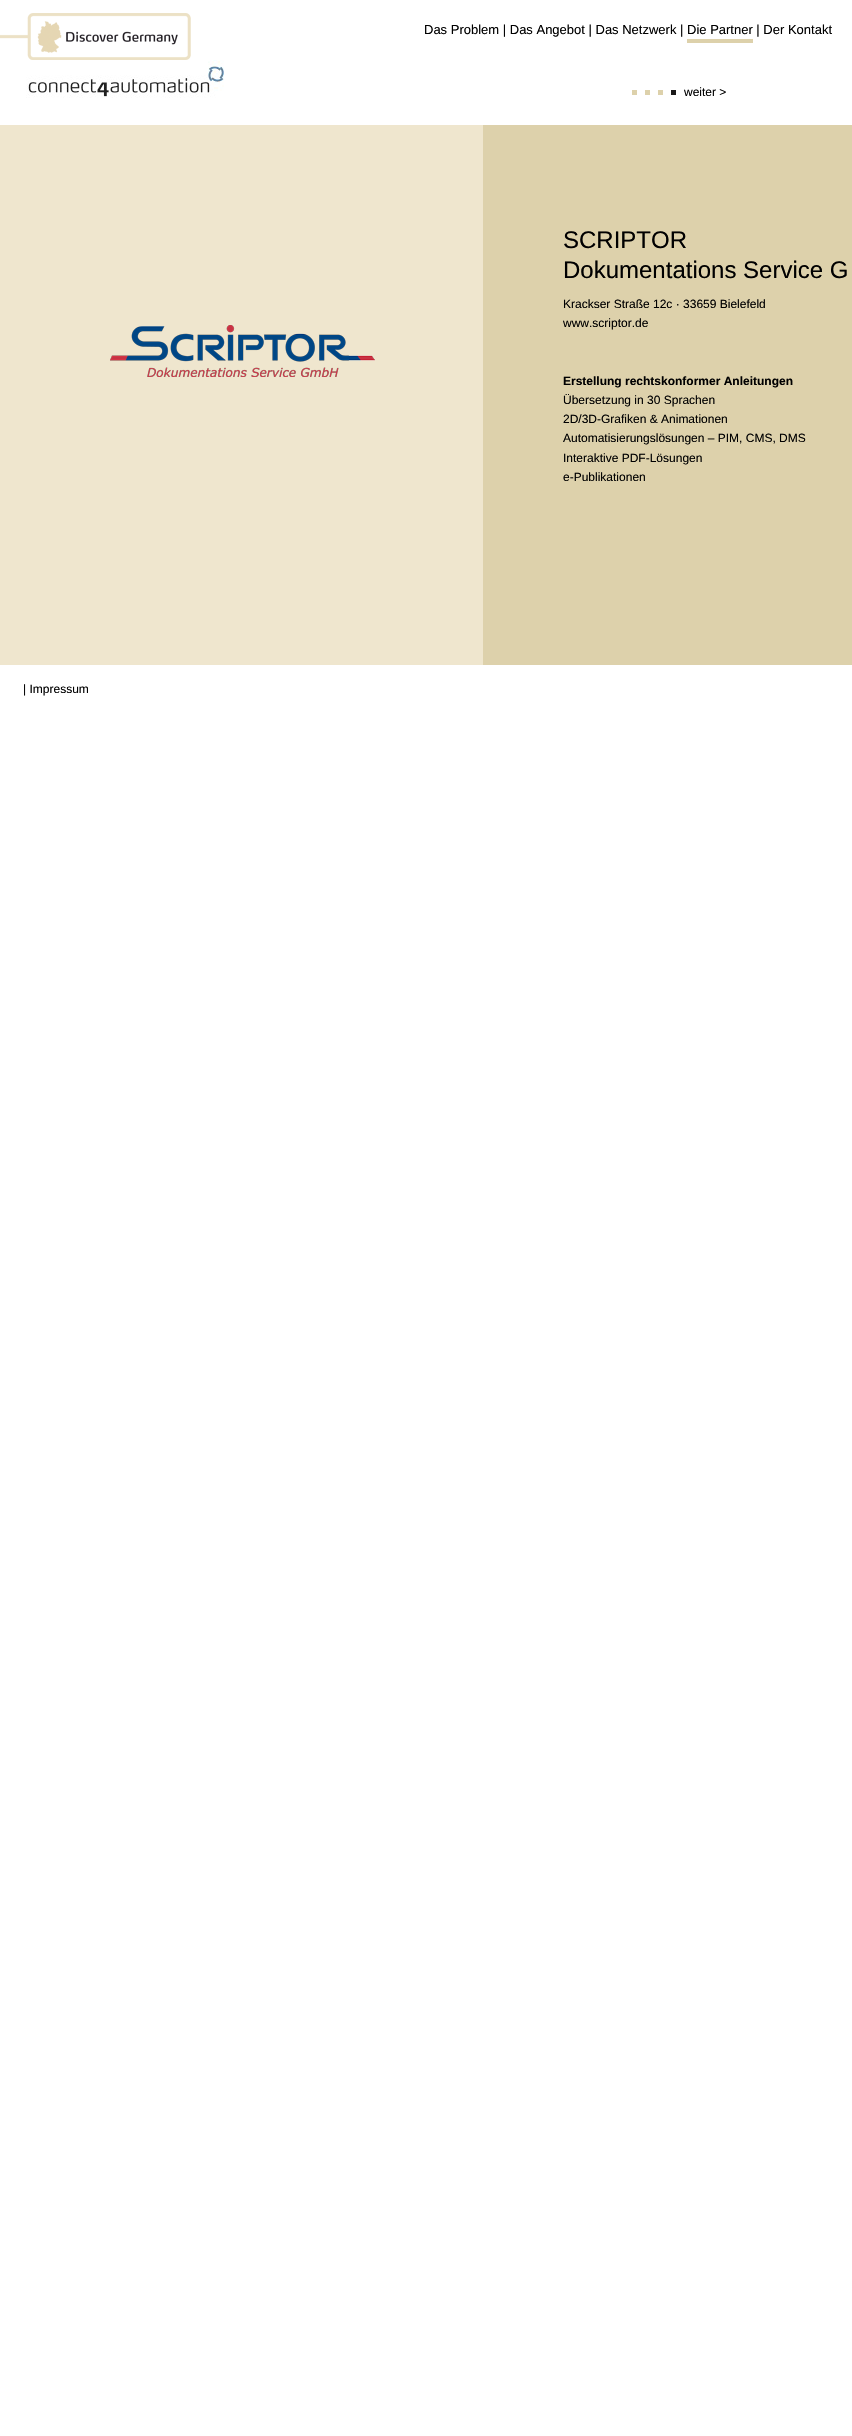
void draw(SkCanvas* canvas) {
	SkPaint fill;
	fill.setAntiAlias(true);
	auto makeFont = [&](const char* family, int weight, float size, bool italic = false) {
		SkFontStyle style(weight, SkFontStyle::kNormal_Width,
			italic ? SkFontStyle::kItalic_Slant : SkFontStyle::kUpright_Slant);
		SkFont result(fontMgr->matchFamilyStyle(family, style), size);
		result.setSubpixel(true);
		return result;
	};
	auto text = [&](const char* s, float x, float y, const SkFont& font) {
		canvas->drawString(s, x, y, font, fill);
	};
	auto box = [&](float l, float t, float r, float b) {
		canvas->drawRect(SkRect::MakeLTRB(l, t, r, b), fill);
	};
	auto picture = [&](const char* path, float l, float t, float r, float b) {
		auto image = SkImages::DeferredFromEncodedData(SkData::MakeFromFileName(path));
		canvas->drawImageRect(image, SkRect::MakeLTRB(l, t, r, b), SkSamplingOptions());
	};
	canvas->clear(0xFFFFFFFF);
	picture("image0.png", 0, 13, 191, 60);
	fill.setColor(0xFFDDD1AB);
	box(687, 39, 753, 43);
	picture("image1.png", 26, 60, 224, 98);
	box(632, 90, 637, 95);
	box(645, 90, 650, 95);
	box(658, 90, 663, 95);
	fill.setColor(0xFF1A1919);
	box(671, 90, 676, 95);
	fill.setColor(0xFFEFE6CE);
	box(0, 125, 483, 665);
	picture("image2.png", 110, 325, 375, 377);
	fill.setColor(0xFFDDD1AB);
	box(483, 125, 852, 665);
	auto font1 = makeFont("Liberation Sans", 400, 13);
	fill.setColor(0xFF000000);
	text("Das Problem | Das Angebot | Das Netzwerk | Die Partner | Der Kontakt", 424, 34, font1);
	auto font2 = makeFont("Liberation Sans", 400, 12);
	text("weiter >", 684, 96, font2);
	auto font3 = makeFont("Liberation Sans", 400, 24);
	text("SCRIPTOR", 563, 248, font3);
	text("Dokumentations Service G", 563, 278, font3);
	text("Krackser Straße 12c · 33659 Bielefeld", 563, 308, font2);
	text("www.scriptor.de", 563, 327, font2);
	auto font4 = makeFont("Liberation Sans", 700, 12);
	text("Erstellung rechtskonformer Anleitungen", 563, 385, font4);
	text("Übersetzung in 30 Sprachen", 563, 404, font2);
	text("2D/3D-Grafiken & Animationen", 563, 423, font2);
	text("Automatisierungslösungen – PIM, CMS, DMS", 563, 442, font2);
	text("Interaktive PDF-Lösungen", 563, 462, font2);
	text("e-Publikationen", 563, 481, font2);
	text("| Impressum", 23, 693, font2);
}
